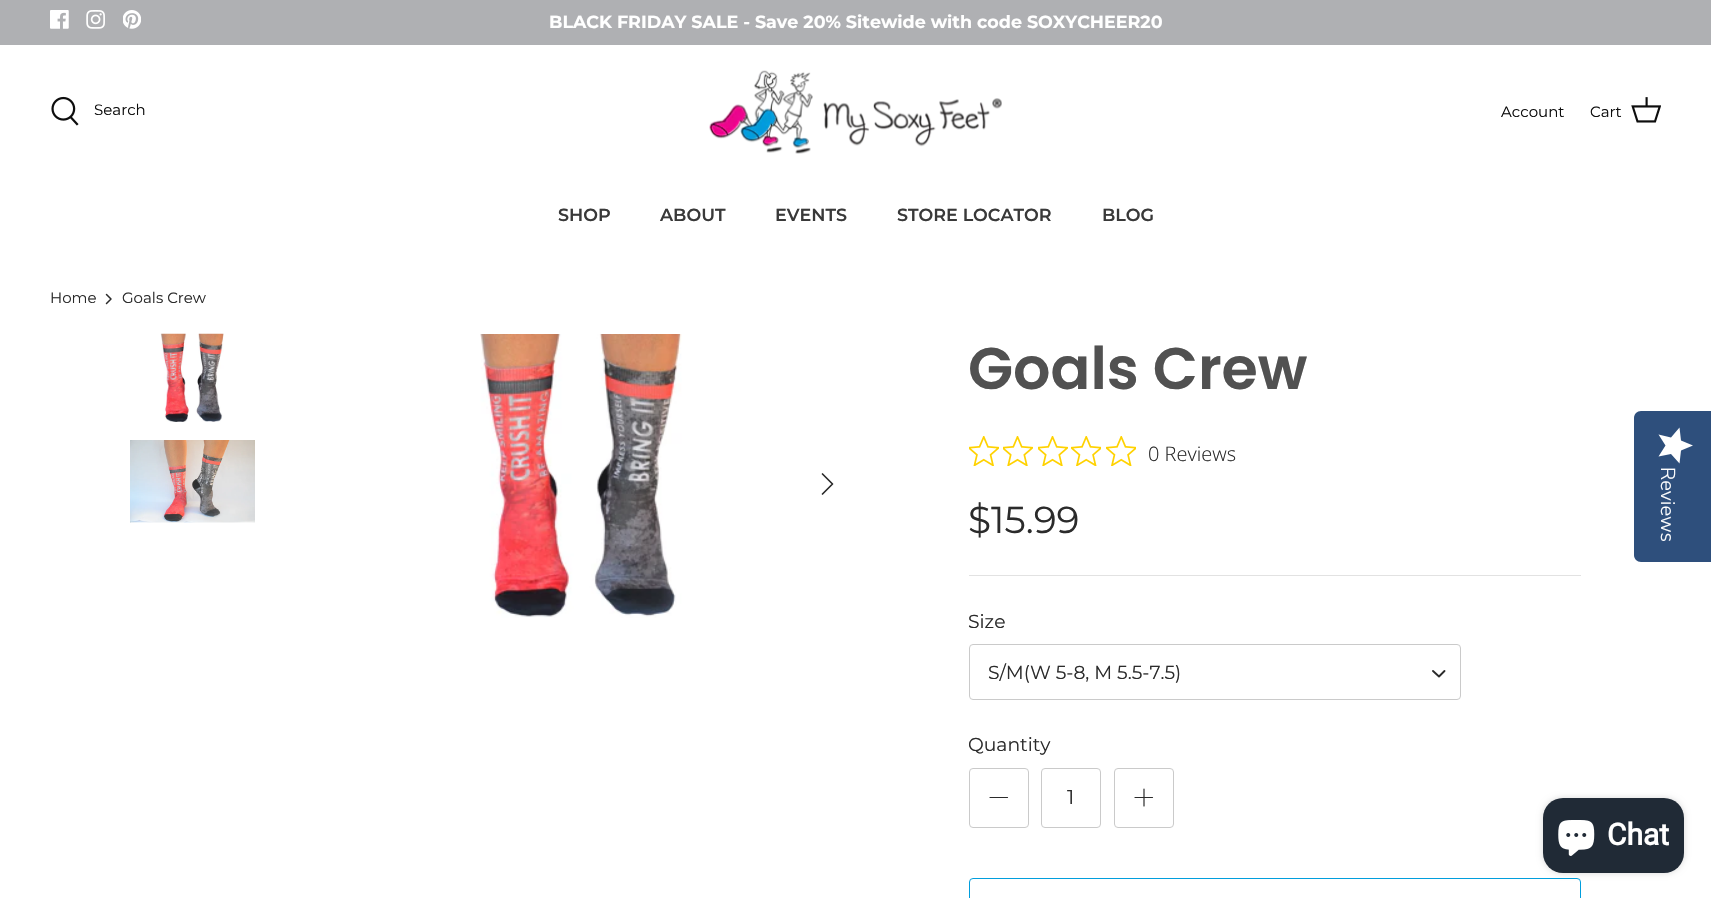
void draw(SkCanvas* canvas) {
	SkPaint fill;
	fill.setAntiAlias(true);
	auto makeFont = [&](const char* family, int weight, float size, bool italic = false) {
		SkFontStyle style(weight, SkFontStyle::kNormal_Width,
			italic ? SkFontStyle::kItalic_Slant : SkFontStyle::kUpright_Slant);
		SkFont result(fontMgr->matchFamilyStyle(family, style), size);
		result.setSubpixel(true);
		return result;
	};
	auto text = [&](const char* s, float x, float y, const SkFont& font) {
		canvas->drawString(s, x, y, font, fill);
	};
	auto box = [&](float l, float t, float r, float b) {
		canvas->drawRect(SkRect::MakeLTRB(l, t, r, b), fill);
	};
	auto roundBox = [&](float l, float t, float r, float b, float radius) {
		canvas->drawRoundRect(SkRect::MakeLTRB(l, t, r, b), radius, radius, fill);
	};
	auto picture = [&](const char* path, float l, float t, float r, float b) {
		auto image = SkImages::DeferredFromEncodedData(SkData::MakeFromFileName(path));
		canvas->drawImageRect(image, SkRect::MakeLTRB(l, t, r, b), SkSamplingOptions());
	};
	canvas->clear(0xFFFFFFFF);
	fill.setColor(0xFFAFB0B3);
	box(0, 0, 1711, 45);
	picture("image0.png", 50, 10, 69, 29);
	picture("image1.png", 86, 10, 105, 29);
	picture("image2.png", 123, 10, 141, 29);
	picture("image3.png", 51, 96, 79, 126);
	picture("image4.png", 709, 70, 1002, 154);
	picture("image5.png", 1631, 97, 1661, 123);
	fill.setStyle(SkPaint::kStroke_Style);
	fill.setStrokeWidth(1.5f);
	fill.setStrokeCap(SkPaint::kRound_Cap);
	fill.setStrokeJoin(SkPaint::kRound_Join);
	fill.setColor(0xFF2B2B2B);
	canvas->drawPath(SkPathBuilder().moveTo(106.5f, 303.5f).lineTo(111, 299).lineTo(106.5f, 294.5f).detach(), fill);
	picture("image6.png", 160, 333, 224, 422);
	picture("image7.png", 130, 440, 255, 523);
	picture("image8.png", 480, 334, 682, 618);
	fill.setStrokeWidth(1.7f);
	canvas->drawPath(SkPathBuilder().moveTo(822.5f, 494).lineTo(832.5f, 484).lineTo(822.5f, 474).detach(), fill);
	picture("image9.png", 969, 436, 999, 466);
	picture("image10.png", 1003, 436, 1033, 466);
	picture("image10.png", 1038, 436, 1068, 466);
	picture("image11.png", 1071, 436, 1101, 466);
	picture("image11.png", 1106, 436, 1136, 466);
	fill.setStyle(SkPaint::kFill_Style);
	fill.setColor(0xFFE2E2E2);
	box(969, 575, 1581, 576);
	fill.setStyle(SkPaint::kStroke_Style);
	fill.setStrokeWidth(1);
	fill.setStrokeCap(SkPaint::kButt_Cap);
	fill.setStrokeJoin(SkPaint::kMiter_Join);
	fill.setColor(0xFFCACACA);
	canvas->drawRoundRect(SkRect::MakeLTRB(969.5f, 644.5f, 1460.5f, 699.5f), 3.5f, 3.5f, fill);
	fill.setStrokeWidth(1.9f);
	fill.setStrokeCap(SkPaint::kRound_Cap);
	fill.setStrokeJoin(SkPaint::kRound_Join);
	fill.setColor(0xFF2B2B2B);
	canvas->drawPath(SkPathBuilder().moveTo(1433, 671).lineTo(1439, 676.5f).lineTo(1444.5f, 671).detach(), fill);
	fill.setStrokeWidth(1);
	fill.setStrokeCap(SkPaint::kButt_Cap);
	fill.setStrokeJoin(SkPaint::kMiter_Join);
	fill.setColor(0xFFCACACA);
	canvas->drawRoundRect(SkRect::MakeLTRB(969.5f, 768.5f, 1028.5f, 827.5f), 3.5f, 3.5f, fill);
	fill.setStrokeWidth(1.2f);
	fill.setStrokeCap(SkPaint::kRound_Cap);
	fill.setStrokeJoin(SkPaint::kRound_Join);
	fill.setColor(0xFF2B2B2B);
	canvas->drawPath(SkPathBuilder().moveTo(990, 797.5f).lineTo(1007.5f, 797.5f).detach(), fill);
	fill.setStrokeWidth(1);
	fill.setStrokeCap(SkPaint::kButt_Cap);
	fill.setStrokeJoin(SkPaint::kMiter_Join);
	fill.setColor(0xFFCACACA);
	canvas->drawRoundRect(SkRect::MakeLTRB(1041.5f, 768.5f, 1100.5f, 827.5f), 3.5f, 3.5f, fill);
	canvas->drawRoundRect(SkRect::MakeLTRB(1114.5f, 768.5f, 1173.5f, 827.5f), 3.5f, 3.5f, fill);
	fill.setStrokeWidth(1.2f);
	fill.setStrokeCap(SkPaint::kRound_Cap);
	fill.setStrokeJoin(SkPaint::kRound_Join);
	fill.setColor(0xFF2B2B2B);
	canvas->drawPath(SkPathBuilder().moveTo(1144, 789).lineTo(1144, 806).moveTo(1135, 797.5f).lineTo(1152.5f, 797.5f).detach(), fill);
	fill.setStrokeWidth(1);
	fill.setStrokeCap(SkPaint::kButt_Cap);
	fill.setStrokeJoin(SkPaint::kMiter_Join);
	fill.setColor(0xFF019EDD);
	canvas->drawRoundRect(SkRect::MakeLTRB(969.5f, 878.5f, 1580.5f, 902.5f), 3.5f, 3.5f, fill);
	fill.setStyle(SkPaint::kFill_Style);
	fill.setColor(0xFF2E4F7C);
	canvas->drawPath(SkPathBuilder().moveTo(1711, 411).lineTo(1711, 562).lineTo(1641, 562).cubicTo(1637, 562, 1634, 559, 1634, 555).lineTo(1634, 418).cubicTo(1634, 414, 1637, 411, 1641, 411).close().detach(), fill);
	{
		const SkColor colors[] = {0xFFFFFFFF, 0xFFEAEAEA};
		const float stops[] = {1, 1};
		const SkPoint ends[] = {{1693, 428}, {1693, 464}};
		fill.setShader(SkGradientShader::MakeLinear(ends, colors, stops, 2, SkTileMode::kClamp));
		fill.setAlpha(255);
	}
	canvas->drawPath(SkPathBuilder().moveTo(1665.5f, 445.5f).lineTo(1658.5f, 456.5f).lineTo(1671, 454).lineTo(1679.5f, 463.5f).lineTo(1681, 450.5f).lineTo(1693, 445.5f).lineTo(1681, 440.5f).lineTo(1679.5f, 427.5f).lineTo(1671, 437.5f).lineTo(1658.5f, 434.5f).close().detach(), fill);
	fill.setShader(nullptr);
	fill.setColor(0x26000000);
	fill.setMaskFilter(SkMaskFilter::MakeBlur(kNormal_SkBlurStyle, 3));
	canvas->drawRoundRect(SkRect::MakeLTRB(1543, 798, 1684, 873), 20, 20, fill);
	fill.setMaskFilter(nullptr);
	fill.setColor(0xFF202A36);
	roundBox(1543, 798, 1684, 873, 20);
	picture("image12.png", 1558, 820, 1595, 856);
	auto font1 = makeFont("Montserrat", 700, 17.5f);
	fill.setColor(0xFFFFFFFF);
	text("BLACK FRIDAY SALE - Save 20% Sitewide with code SOXYCHEER20", 549, 28, font1);
	auto font2 = makeFont("Montserrat", 400, 15);
	fill.setColor(0xFF0D0D0D);
	text("Search", 94, 115, font2);
	text("Account", 1501, 117, font2);
	text("Cart", 1590, 117, font2);
	auto font3 = makeFont("Montserrat", 600, 17.5f);
	fill.setColor(0xFF393939);
	text("SHOP", 558, 221, font3);
	text("ABOUT", 660, 221, font3);
	text("EVENTS", 775, 221, font3);
	text("STORE LOCATOR", 897, 221, font3);
	text("BLOG", 1102, 221, font3);
	fill.setColor(0xFF2B2B2B);
	text("Home", 50, 303, font2);
	text("Goals Crew", 122, 303, font2);
	auto font4 = makeFont("Poppins", 600, 58.75f);
	fill.setColor(0xFF515151);
	text("Goals Crew", 968, 389, font4);
	auto font5 = makeFont("Open Sans", 300, 20);
	fill.setColor(0xFF2B2B2B);
	text("0 Reviews", 1148, 461, font5);
	auto font6 = makeFont("Montserrat", 400, 37.5f);
	text("$15.99", 968, 533, font6);
	auto font7 = makeFont("Montserrat", 400, 18.75f);
	text("Size", 968, 628, font7);
	text("S/M(W 5-8, M 5.5-7.5)", 988, 679, font7);
	text("Quantity", 968, 751, font7);
	auto font8 = makeFont("Montserrat", 400, 20);
	text("1", 1067, 804, font8);
	auto font9 = makeFont("Nunito Sans", 300, 20);
	fill.setColor(0xFFFFFFFF);
	canvas->save();
	canvas->rotate(90, 1661, 467);
	text("Reviews", 1661, 467, font9);
	canvas->restore();
	auto font10 = makeFont("Roboto", 700, 30);
	text("Chat", 1607, 845, font10);
}
